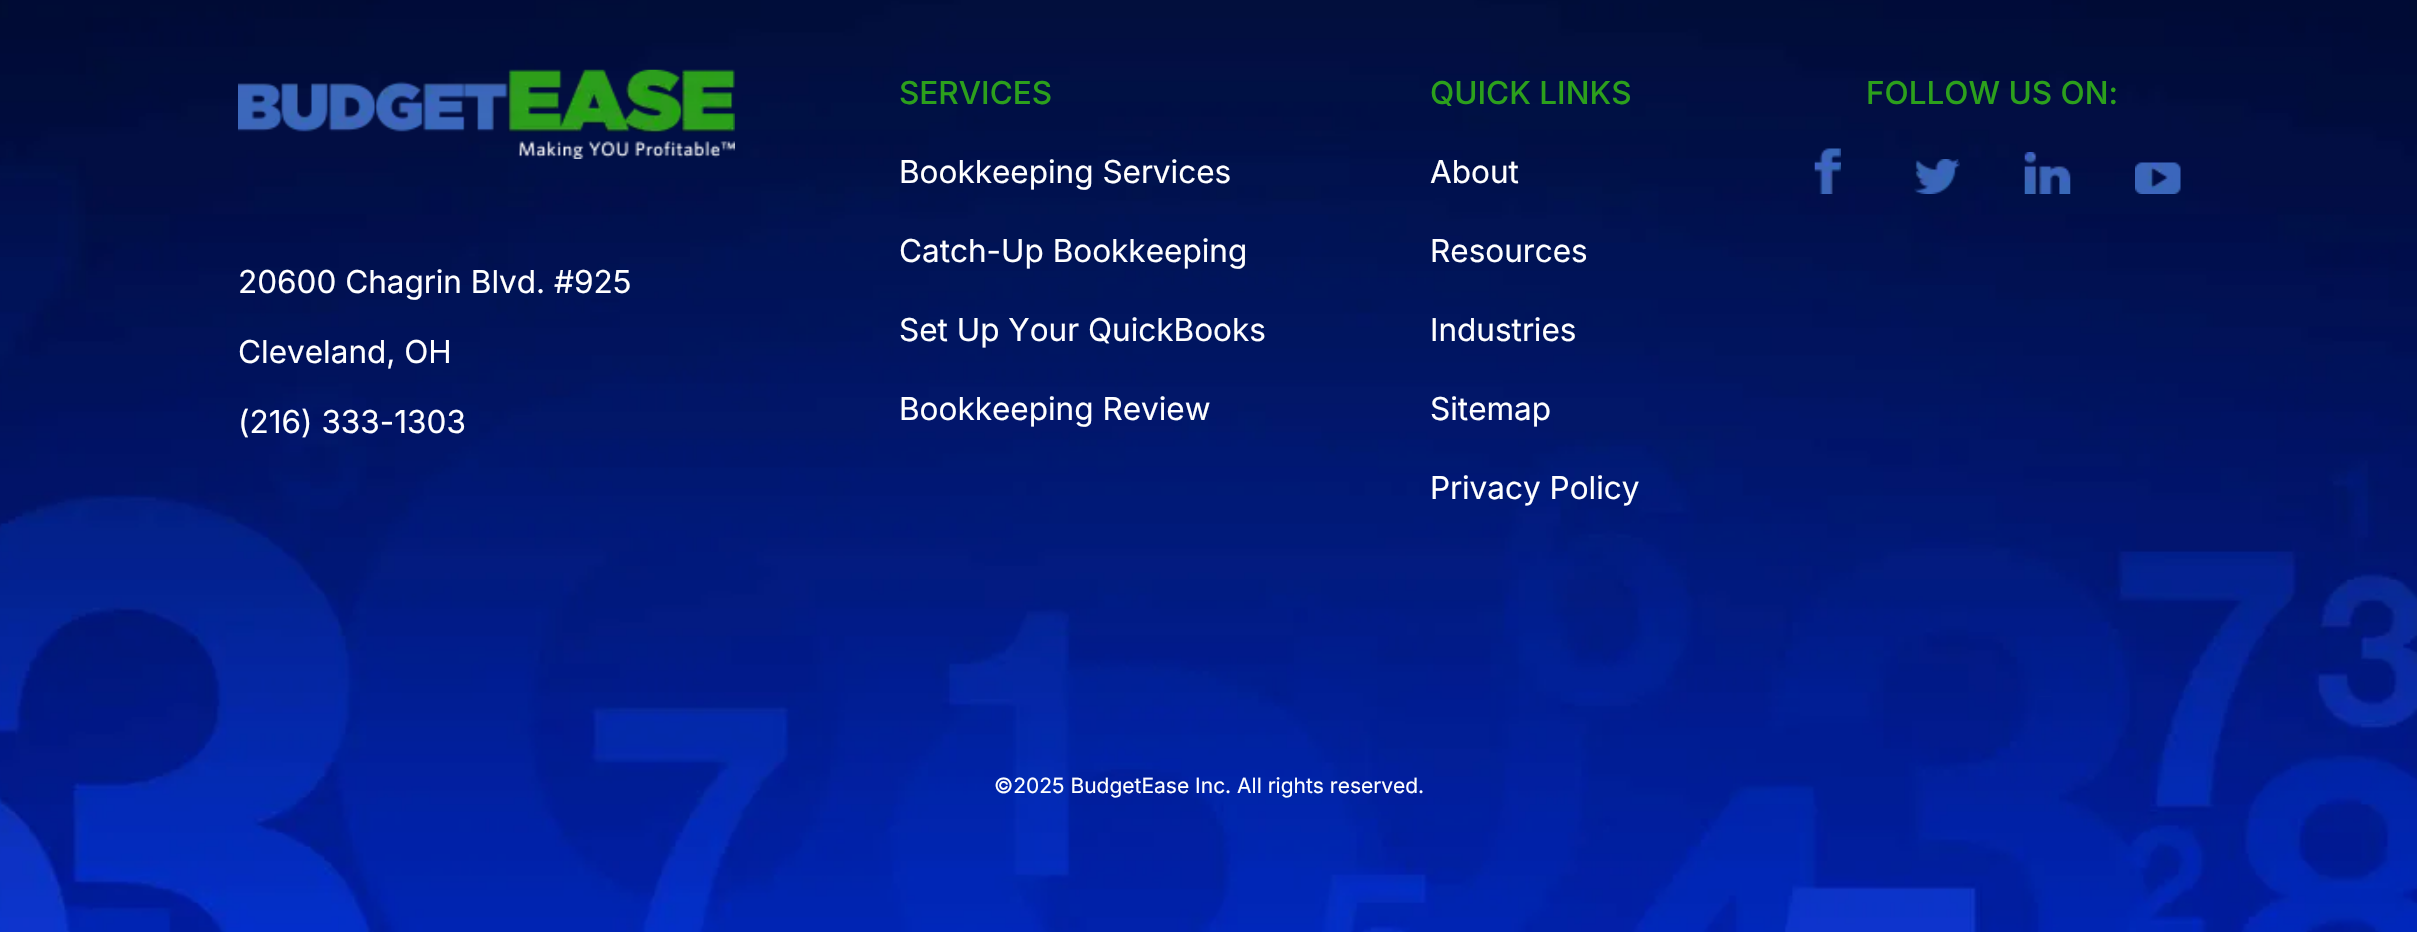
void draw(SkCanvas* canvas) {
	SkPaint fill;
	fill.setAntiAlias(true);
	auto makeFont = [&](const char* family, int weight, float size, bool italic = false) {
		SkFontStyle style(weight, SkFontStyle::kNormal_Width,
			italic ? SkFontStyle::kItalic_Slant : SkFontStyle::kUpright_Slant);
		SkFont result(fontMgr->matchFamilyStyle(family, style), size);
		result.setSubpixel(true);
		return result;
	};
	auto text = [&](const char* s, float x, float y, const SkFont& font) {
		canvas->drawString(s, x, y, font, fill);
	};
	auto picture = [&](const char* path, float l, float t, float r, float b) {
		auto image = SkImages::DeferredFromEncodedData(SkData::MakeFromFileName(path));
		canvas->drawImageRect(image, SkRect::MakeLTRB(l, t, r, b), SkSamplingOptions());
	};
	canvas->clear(0xFFFFFFFF);
	picture("image0.png", 0, 0, 2417, 932);
	picture("image1.png", 1814, 148, 1841, 194);
	picture("image2.png", 1914, 159, 1960, 194);
	picture("image3.png", 2024, 152, 2071, 194);
	picture("image4.png", 2135, 162, 2181, 194);
	picture("image5.png", 238, 69, 735, 159);
	auto font1 = makeFont("Inter", 500, 31.5f);
	fill.setColor(0xFF2CA01C);
	text("SERVICES", 899, 104, font1);
	auto font2 = makeFont("Inter", 400, 31.5f);
	fill.setColor(0xFFFFFFFF);
	text("Bookkeeping Services", 899, 183, font2);
	text("Catch-Up Bookkeeping", 899, 262, font2);
	text("Set Up Your QuickBooks", 899, 341, font2);
	text("Bookkeeping Review", 899, 420, font2);
	fill.setColor(0xFF2CA01C);
	text("QUICK LINKS", 1430, 104, font1);
	fill.setColor(0xFFFFFFFF);
	text("About", 1430, 183, font2);
	text("Resources", 1430, 262, font2);
	text("Industries", 1430, 341, font2);
	text("Sitemap", 1430, 420, font2);
	text("Privacy Policy", 1430, 499, font2);
	fill.setColor(0xFF2CA01C);
	text("FOLLOW US ON:", 1866, 104, font1);
	fill.setColor(0xFFFFFFFF);
	text("20600 Chagrin Blvd. #925", 238, 293, font2);
	text("Cleveland, OH", 238, 363, font2);
	text("(216) 333-1303", 238, 433, font2);
	auto font3 = makeFont("Inter", 400, 21);
	text("©2025 BudgetEase Inc. All rights reserved.", 994, 793, font3);
}
